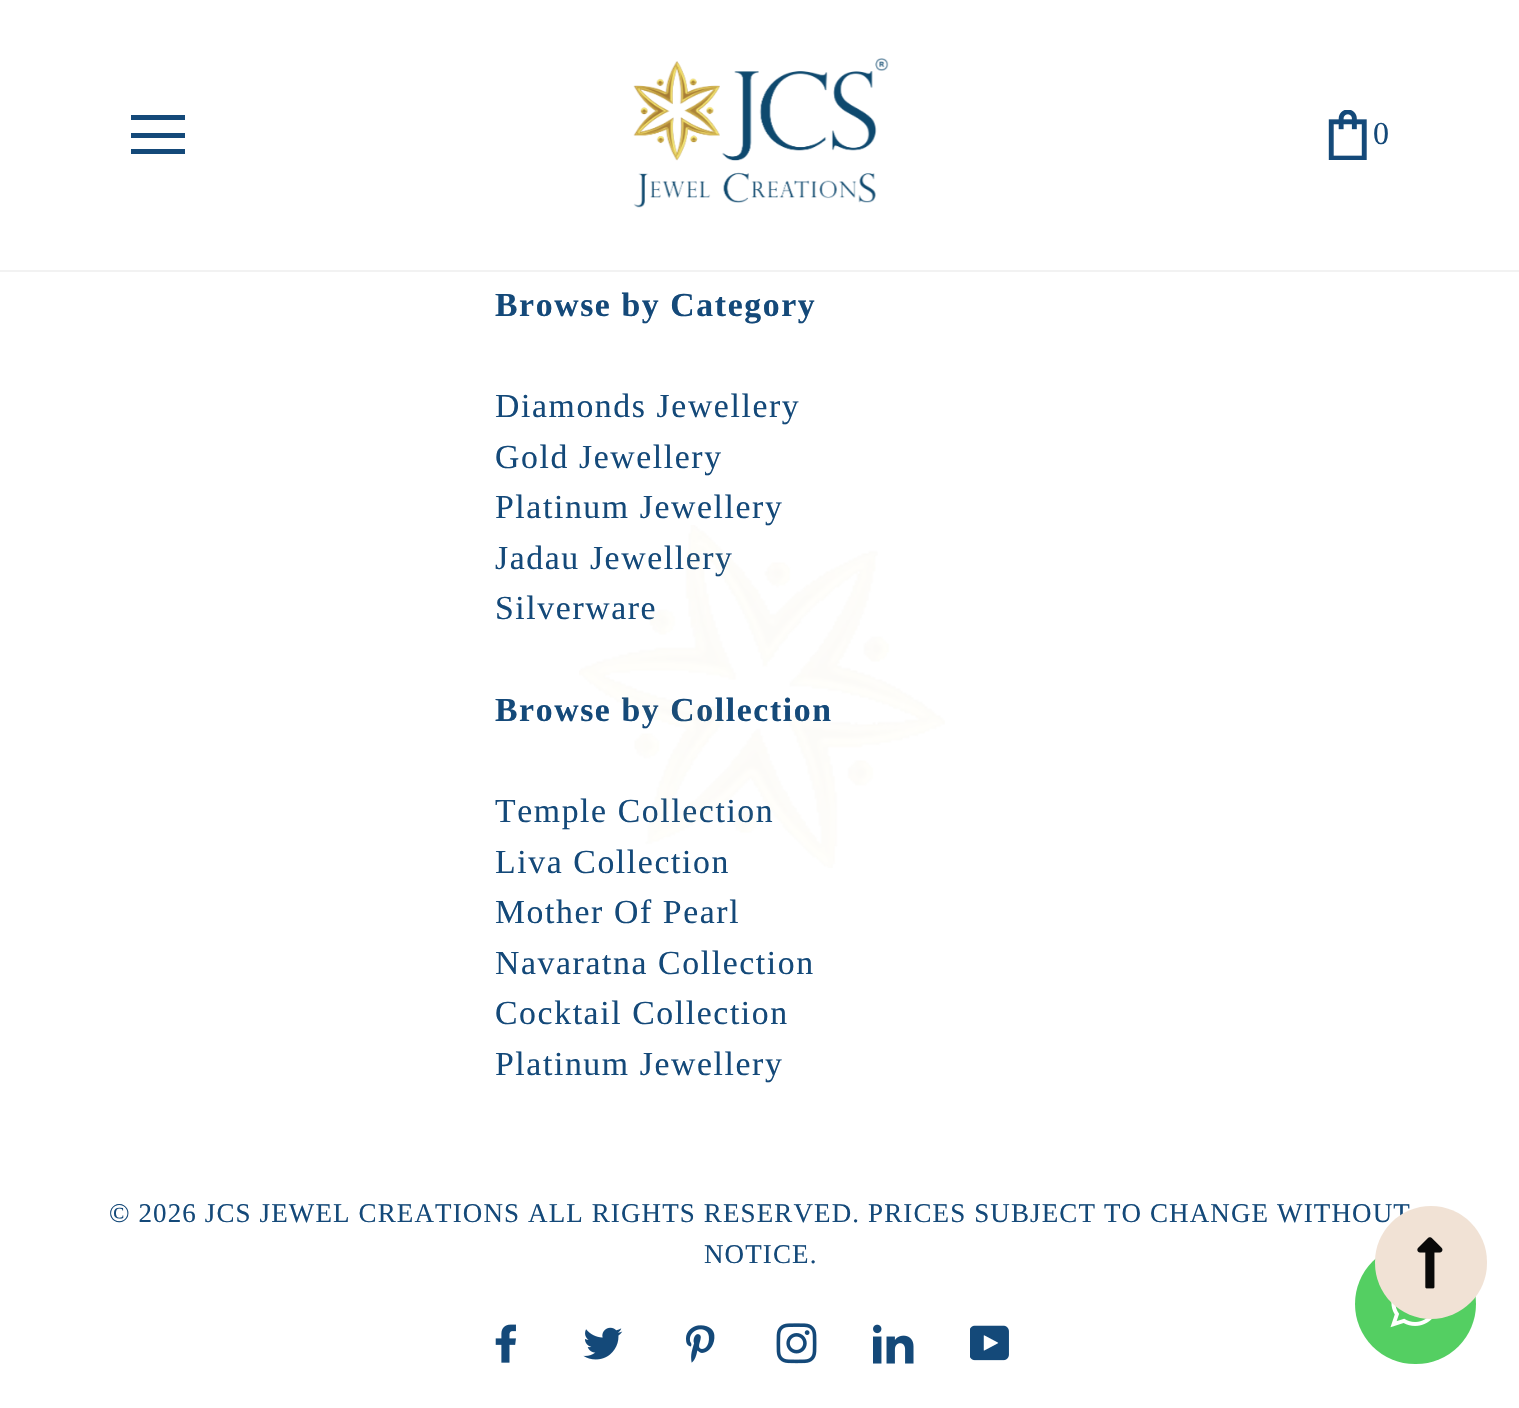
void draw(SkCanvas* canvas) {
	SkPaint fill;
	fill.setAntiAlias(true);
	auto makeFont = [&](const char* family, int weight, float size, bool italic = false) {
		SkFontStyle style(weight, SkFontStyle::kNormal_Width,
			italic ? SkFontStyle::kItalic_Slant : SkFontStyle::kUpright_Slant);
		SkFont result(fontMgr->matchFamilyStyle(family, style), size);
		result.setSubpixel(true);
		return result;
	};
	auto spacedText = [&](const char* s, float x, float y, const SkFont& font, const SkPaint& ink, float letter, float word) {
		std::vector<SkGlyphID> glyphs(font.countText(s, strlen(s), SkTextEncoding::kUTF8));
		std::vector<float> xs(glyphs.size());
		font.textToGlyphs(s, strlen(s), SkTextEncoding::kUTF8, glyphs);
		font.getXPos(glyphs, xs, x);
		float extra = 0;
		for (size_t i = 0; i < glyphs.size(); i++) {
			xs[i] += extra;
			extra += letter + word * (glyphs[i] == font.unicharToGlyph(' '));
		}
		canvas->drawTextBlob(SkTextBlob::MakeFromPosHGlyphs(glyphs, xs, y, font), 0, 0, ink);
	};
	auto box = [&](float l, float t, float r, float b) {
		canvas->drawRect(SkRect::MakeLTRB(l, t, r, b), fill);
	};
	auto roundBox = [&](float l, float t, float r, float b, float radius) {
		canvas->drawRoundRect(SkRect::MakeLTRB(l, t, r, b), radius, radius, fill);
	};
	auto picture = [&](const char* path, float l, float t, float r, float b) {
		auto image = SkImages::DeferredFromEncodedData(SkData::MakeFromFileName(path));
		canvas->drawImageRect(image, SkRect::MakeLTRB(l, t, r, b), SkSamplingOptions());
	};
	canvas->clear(0xFFFFFFFF);
	fill.setColor(0xFFF2F2F2);
	box(0, 270, 1519, 272);
	fill.setColor(0xFF144979);
	box(131, 115, 185, 120);
	box(131, 133, 185, 138);
	box(131, 149, 185, 154);
	picture("image0.png", 633, 58, 889, 208);
	picture("image1.png", 1328, 110, 1367, 160);
	picture("image2.png", 495, 1324, 516, 1363);
	picture("image3.png", 583, 1327, 623, 1360);
	picture("image4.png", 686, 1325, 715, 1363);
	picture("image5.png", 776, 1323, 817, 1364);
	picture("image6.png", 873, 1324, 914, 1364);
	picture("image7.png", 970, 1325, 1009, 1361);
	fill.setColor(0xFF54CF62);
	roundBox(1355, 1244, 1476, 1364, 60);
	picture("image10.png", 1390, 1302, 1433, 1328);
	auto font1 = makeFont("Liberation Serif", 400, 32);
	fill.setColor(0xFF144979);
	spacedText("0", 1373, 144, font1, fill, 1.6f, 0);
	auto font2 = makeFont("Liberation Serif", 700, 33.75f);
	spacedText("Browse by Category", 495, 316, font2, fill, 1.6f, 0);
	auto font3 = makeFont("Liberation Serif", 400, 33.75f);
	spacedText("Diamonds Jewellery", 495, 417, font3, fill, 1.6f, 0);
	spacedText("Gold Jewellery", 495, 468, font3, fill, 1.6f, 0);
	spacedText("Platinum Jewellery", 495, 518, font3, fill, 1.6f, 0);
	spacedText("Jadau Jewellery", 495, 569, font3, fill, 1.6f, 0);
	spacedText("Silverware", 495, 619, font3, fill, 1.6f, 0);
	spacedText("Browse by Collection", 495, 721, font2, fill, 1.6f, 0);
	spacedText("Temple Collection", 495, 822, font3, fill, 1.6f, 0);
	spacedText("Liva Collection", 495, 873, font3, fill, 1.6f, 0);
	spacedText("Mother Of Pearl", 495, 923, font3, fill, 1.6f, 0);
	spacedText("Navaratna Collection", 495, 974, font3, fill, 1.6f, 0);
	spacedText("Cocktail Collection", 495, 1024, font3, fill, 1.6f, 0);
	spacedText("Platinum Jewellery", 495, 1075, font3, fill, 1.6f, 0);
	auto font4 = makeFont("Liberation Serif", 400, 27);
	spacedText("© 2026 JCS JEWEL CREATIONS ALL RIGHTS RESERVED. PRICES SUBJECT TO CHANGE WITHOUT", 109, 1222, font4, fill, 1.12f, 0);
	spacedText("NOTICE.", 704, 1263, font4, fill, 1.12f, 0);
	picture("image8.png", 579, 525, 945, 868);
	fill.setColor(0xFFF1E2D5);
	roundBox(1375, 1206, 1487, 1319, 56);
	picture("image9.png", 1417, 1237, 1443, 1289);
}
